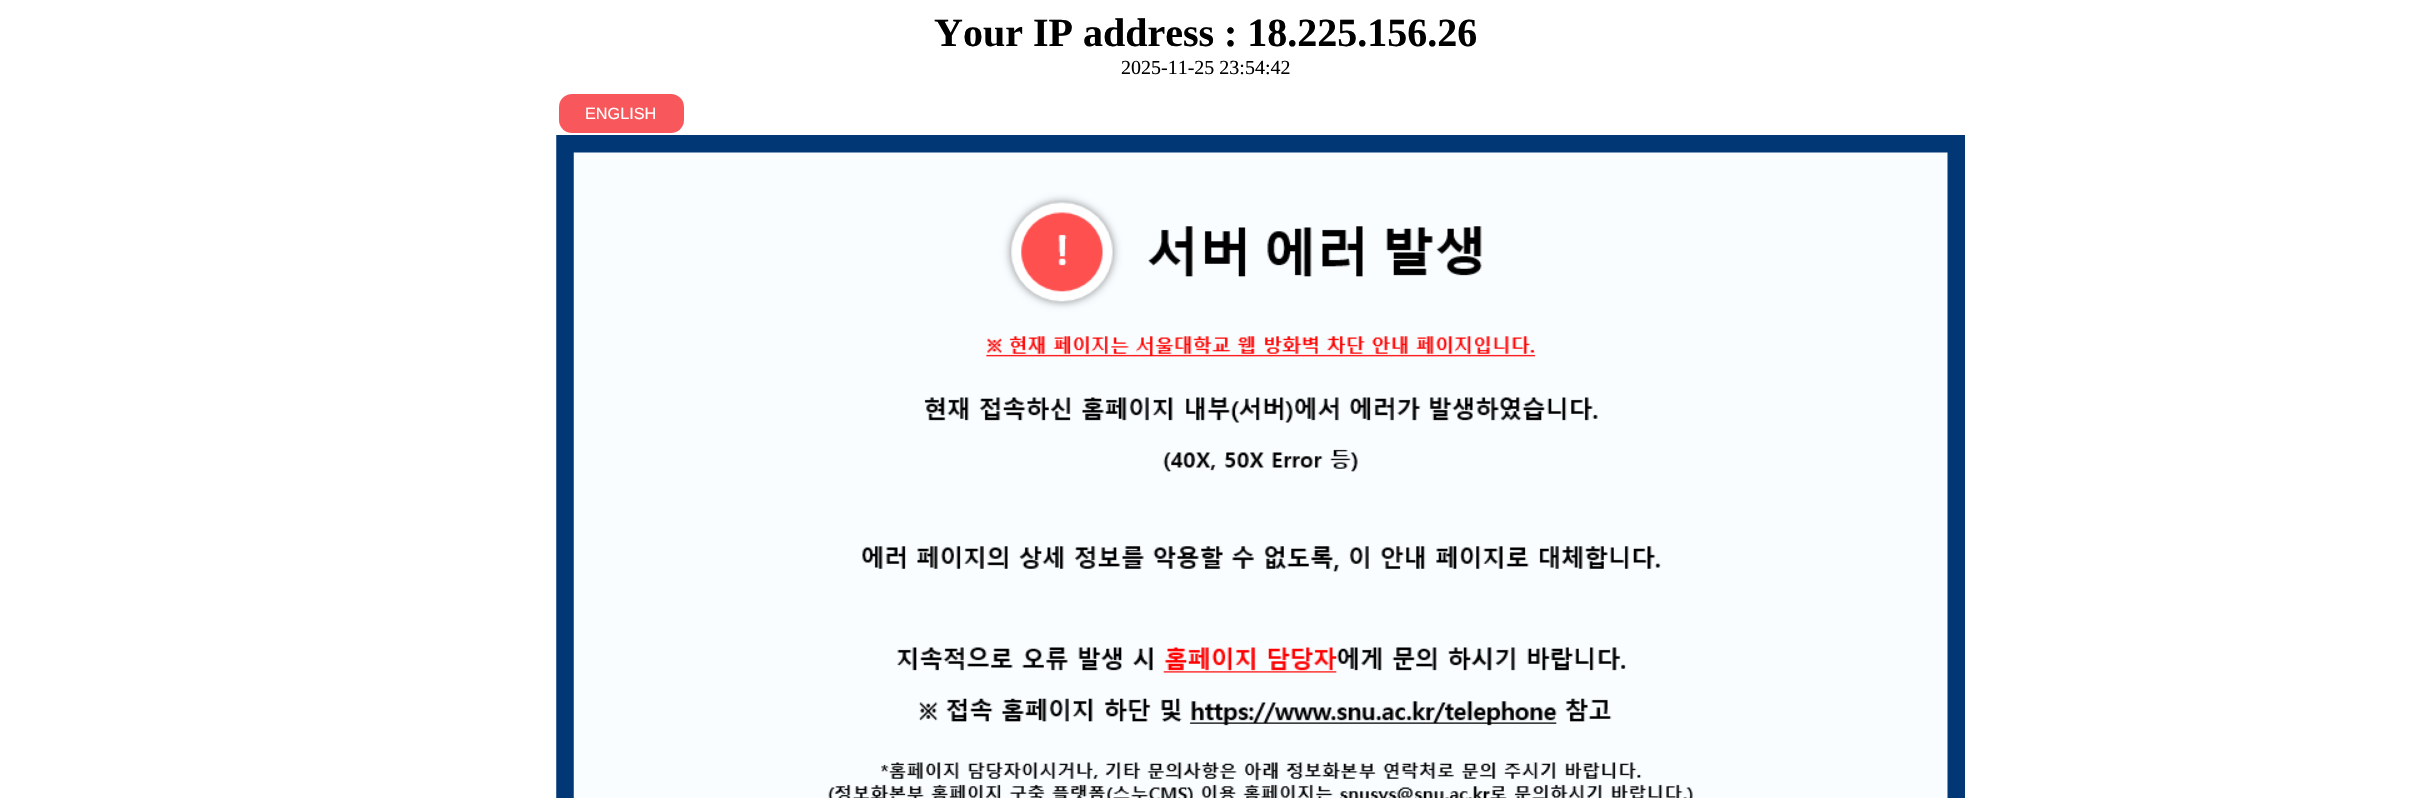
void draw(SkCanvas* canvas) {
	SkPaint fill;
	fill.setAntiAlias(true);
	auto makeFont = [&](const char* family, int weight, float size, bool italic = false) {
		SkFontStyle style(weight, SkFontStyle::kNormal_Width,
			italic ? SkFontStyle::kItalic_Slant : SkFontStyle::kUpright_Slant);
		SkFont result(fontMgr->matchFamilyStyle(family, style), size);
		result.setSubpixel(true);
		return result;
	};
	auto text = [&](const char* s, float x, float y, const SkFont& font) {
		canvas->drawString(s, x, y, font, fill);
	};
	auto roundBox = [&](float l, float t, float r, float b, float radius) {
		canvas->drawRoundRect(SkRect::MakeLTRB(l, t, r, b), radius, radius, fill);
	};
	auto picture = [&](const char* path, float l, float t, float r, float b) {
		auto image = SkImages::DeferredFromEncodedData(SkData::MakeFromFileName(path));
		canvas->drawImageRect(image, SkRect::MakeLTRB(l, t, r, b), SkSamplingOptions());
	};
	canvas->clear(0xFFFFFFFF);
	fill.setColor(0xFFF8585B);
	roundBox(559, 94, 684, 133, 13);
	picture("image0.png", 556, 135, 1965, 798);
	auto font1 = makeFont("Liberation Serif", 700, 40);
	fill.setColor(0xFF000000);
	text("Your IP address : 18.225.156.26", 934, 46, font1);
	auto font2 = makeFont("Liberation Serif", 400, 20);
	text("2025-11-25 23:54:42", 1121, 74, font2);
	auto font3 = makeFont("Liberation Sans", 400, 16.25f);
	fill.setColor(0xFFFFFFFF);
	text("ENGLISH", 585, 119, font3);
}
